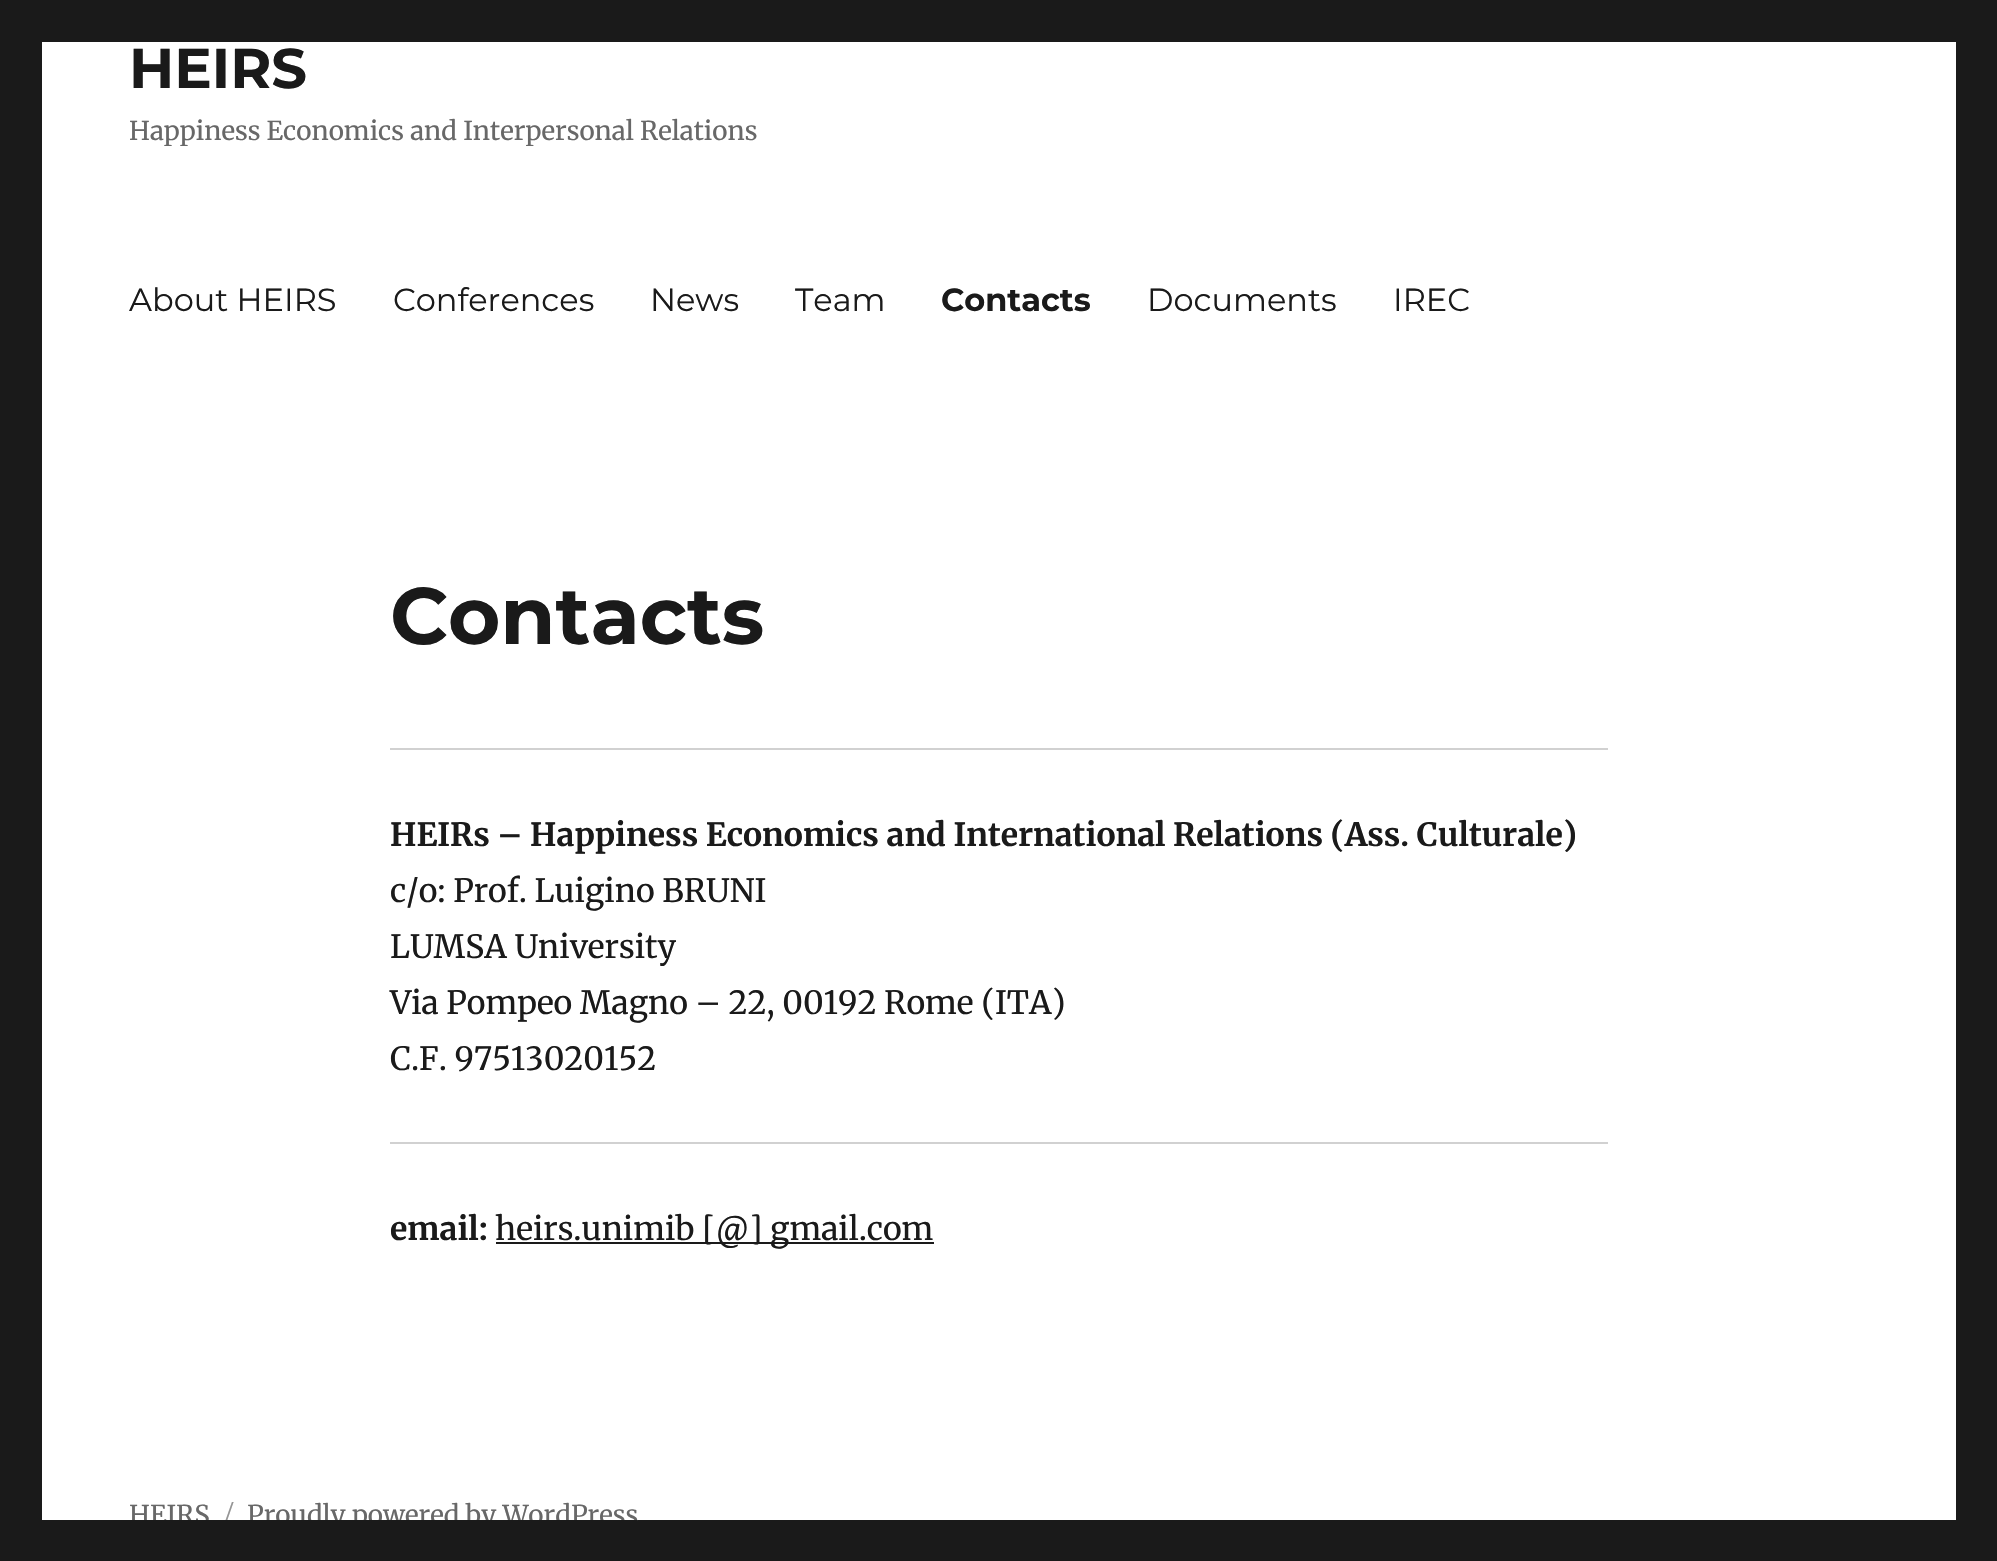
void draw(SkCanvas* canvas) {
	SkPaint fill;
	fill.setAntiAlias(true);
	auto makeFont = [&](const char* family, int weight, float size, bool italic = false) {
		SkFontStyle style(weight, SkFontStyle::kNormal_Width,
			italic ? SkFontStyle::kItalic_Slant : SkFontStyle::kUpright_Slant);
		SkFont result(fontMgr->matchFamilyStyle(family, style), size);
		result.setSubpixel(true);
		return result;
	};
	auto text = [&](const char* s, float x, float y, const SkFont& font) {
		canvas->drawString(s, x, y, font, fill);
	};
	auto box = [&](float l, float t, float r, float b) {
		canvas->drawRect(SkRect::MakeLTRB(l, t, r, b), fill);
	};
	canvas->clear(0xFF1A1A1A);
	fill.setColor(0xFFFFFFFF);
	box(42, 42, 1956, 1520);
	fill.setColor(0xFFD1D1D1);
	box(390, 748, 1608, 750);
	box(390, 1142, 1608, 1144);
	fill.setColor(0xFF1A1A1A);
	box(496, 1242, 934, 1244);
	auto font1 = makeFont("Montserrat", 700, 56);
	text("HEIRS", 129, 88, font1);
	canvas->save();
	canvas->clipRect(SkRect::MakeLTRB(130, 34, 758, 146));
	auto font2 = makeFont("Merriweather", 400, 26);
	fill.setColor(0xFF686868);
	text("Happiness Economics and Interpersonal Relations", 129, 140, font2);
	canvas->restore();
	auto font3 = makeFont("Montserrat", 400, 32);
	fill.setColor(0xFF1A1A1A);
	text("About HEIRS", 129, 311, font3);
	text("Conferences", 393, 311, font3);
	text("News", 650, 311, font3);
	text("Team", 795, 311, font3);
	auto font4 = makeFont("Montserrat", 700, 32);
	text("Contacts", 941, 311, font4);
	text("Documents", 1147, 311, font3);
	text("IREC", 1393, 311, font3);
	auto font5 = makeFont("Montserrat", 700, 80);
	text("Contacts", 390, 644, font5);
	auto font6 = makeFont("Merriweather", 700, 32);
	text("HEIRs – Happiness Economics and International Relations (Ass. Culturale)", 390, 846, font6);
	auto font7 = makeFont("Merriweather", 400, 32);
	text("c/o: Prof. Luigino BRUNI", 390, 902, font7);
	text("LUMSA University", 390, 958, font7);
	text("Via Pompeo Magno – 22, 00192 Rome (ITA)", 390, 1014, font7);
	text("C.F. 97513020152", 390, 1070, font7);
	text("email:", 390, 1240, font6);
	text("heirs.unimib [@] gmail.com", 495, 1240, font7);
	fill.setColor(0xFF686868);
	text("HEIRS", 129, 1524, font2);
	auto font8 = makeFont("Montserrat", 400, 26);
	fill.setColor(0xFF959595);
	text("/", 224, 1524, font8);
	fill.setColor(0xFF686868);
	text("Proudly powered by WordPress", 247, 1524, font2);
	fill.setColor(0xFF1A1A1A);
	box(130, 1520, 637, 1531);
}
